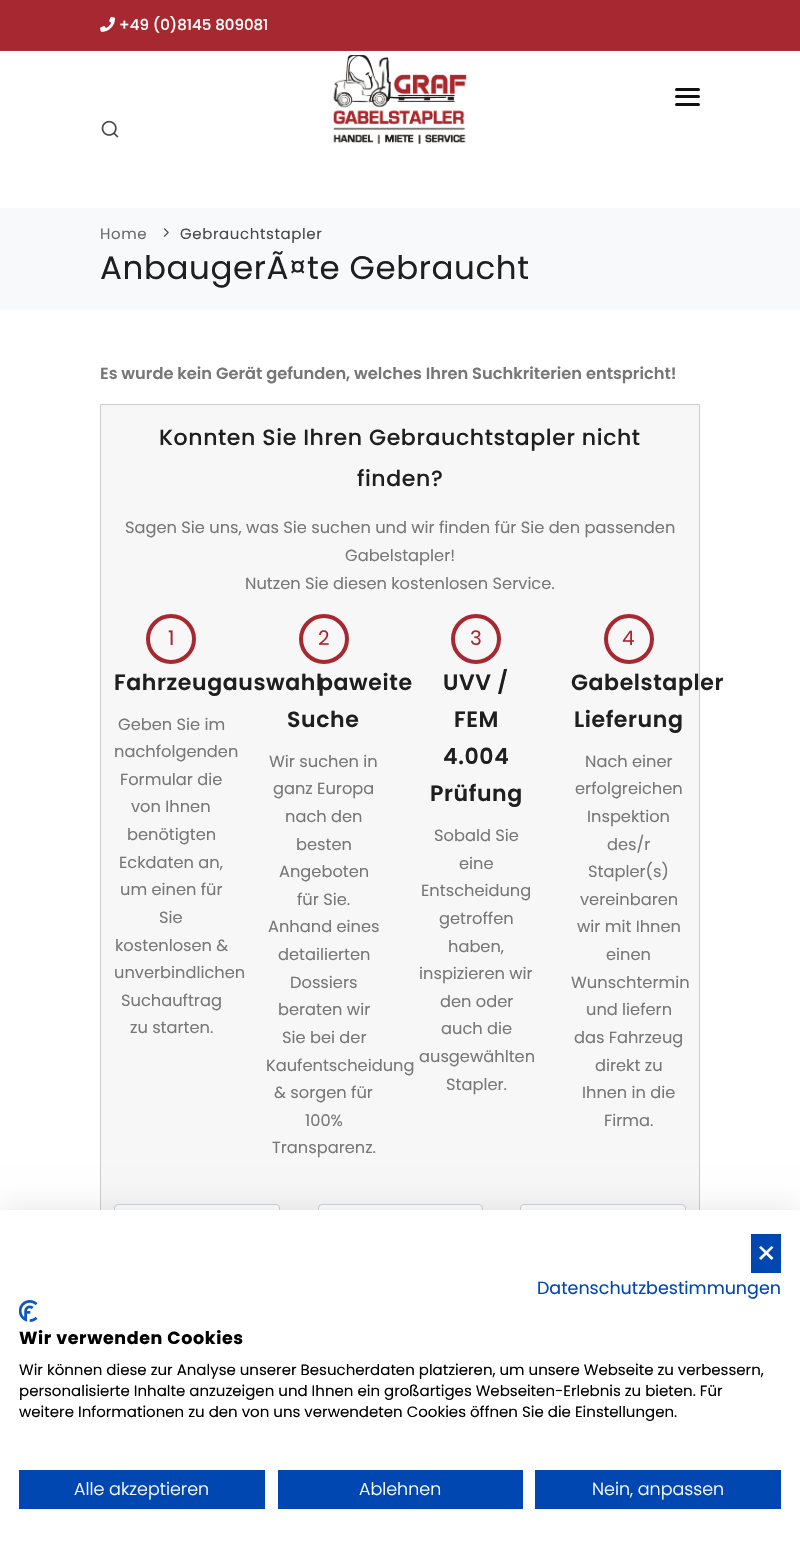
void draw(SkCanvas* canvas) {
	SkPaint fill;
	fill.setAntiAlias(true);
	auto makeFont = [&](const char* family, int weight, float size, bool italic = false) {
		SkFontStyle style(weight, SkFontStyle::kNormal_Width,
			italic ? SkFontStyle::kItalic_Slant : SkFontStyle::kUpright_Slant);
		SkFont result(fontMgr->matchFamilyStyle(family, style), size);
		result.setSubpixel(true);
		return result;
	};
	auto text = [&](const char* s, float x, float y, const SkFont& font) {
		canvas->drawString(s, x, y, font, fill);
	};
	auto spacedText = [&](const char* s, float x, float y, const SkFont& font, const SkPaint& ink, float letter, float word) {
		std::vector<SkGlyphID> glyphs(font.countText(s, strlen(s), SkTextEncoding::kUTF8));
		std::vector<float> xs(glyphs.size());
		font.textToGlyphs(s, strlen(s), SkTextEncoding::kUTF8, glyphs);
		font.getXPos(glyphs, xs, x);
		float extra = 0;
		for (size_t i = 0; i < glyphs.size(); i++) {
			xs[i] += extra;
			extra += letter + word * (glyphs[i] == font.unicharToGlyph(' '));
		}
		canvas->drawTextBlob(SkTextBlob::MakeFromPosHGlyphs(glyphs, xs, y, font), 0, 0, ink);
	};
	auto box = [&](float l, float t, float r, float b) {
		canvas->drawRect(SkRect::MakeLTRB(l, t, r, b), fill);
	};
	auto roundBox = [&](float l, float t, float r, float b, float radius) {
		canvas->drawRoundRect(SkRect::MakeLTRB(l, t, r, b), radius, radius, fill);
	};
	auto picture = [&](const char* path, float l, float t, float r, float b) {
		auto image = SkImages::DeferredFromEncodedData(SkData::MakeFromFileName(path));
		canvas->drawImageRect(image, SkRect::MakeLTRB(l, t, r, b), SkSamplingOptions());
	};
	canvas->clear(0xFFFFFFFF);
	fill.setColor(0xFFA72830);
	box(0, 0, 800, 50);
	fill.setColor(0xFFAA3239);
	box(0, 50, 800, 51);
	picture("image0.png", 100, 16, 115, 32);
	picture("image1.png", 333, 55, 467, 144);
	fill.setColor(0xFF111111);
	roundBox(675, 95, 700, 98, 1.5f);
	roundBox(675, 88, 700, 91, 1.5f);
	roundBox(675, 103, 700, 106, 1.5f);
	picture("image2.png", 101, 120, 119, 138);
	fill.setColor(0xFFF8F9FA);
	box(0, 208, 800, 310);
	picture("image3.png", 163, 228, 169, 237);
	fill.setColor(0xFFF7F7F7);
	box(101, 405, 699, 1210);
	fill.setStyle(SkPaint::kStroke_Style);
	fill.setStrokeWidth(1);
	fill.setColor(0xFFCCCCCC);
	canvas->drawRect(SkRect::MakeLTRB(100.5f, 404.5f, 699.5f, 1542.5f), fill);
	fill.setStrokeWidth(4);
	fill.setColor(0xFFA72830);
	canvas->drawCircle(171, 639, 23, fill);
	canvas->drawCircle(324, 639, 23, fill);
	canvas->drawCircle(476, 639, 23, fill);
	canvas->drawCircle(629, 639, 23, fill);
	fill.setStyle(SkPaint::kFill_Style);
	fill.setColor(0xFFFFFFFF);
	roundBox(115, 1205, 279, 1253, 2.5f);
	fill.setStyle(SkPaint::kStroke_Style);
	fill.setStrokeWidth(1);
	fill.setColor(0xFFCED4DA);
	canvas->drawRoundRect(SkRect::MakeLTRB(114.5f, 1204.5f, 279.5f, 1253.5f), 3.5f, 3.5f, fill);
	fill.setStyle(SkPaint::kFill_Style);
	fill.setColor(0xFFFFFFFF);
	roundBox(319, 1205, 481, 1253, 2.5f);
	fill.setStyle(SkPaint::kStroke_Style);
	fill.setColor(0xFFCED4DA);
	canvas->drawRoundRect(SkRect::MakeLTRB(318.5f, 1204.5f, 482.5f, 1253.5f), 3.5f, 3.5f, fill);
	fill.setStyle(SkPaint::kFill_Style);
	fill.setColor(0xFFFFFFFF);
	roundBox(521, 1205, 685, 1253, 2.5f);
	fill.setStyle(SkPaint::kStroke_Style);
	fill.setColor(0xFFCED4DA);
	canvas->drawRoundRect(SkRect::MakeLTRB(520.5f, 1204.5f, 685.5f, 1253.5f), 3.5f, 3.5f, fill);
	fill.setStyle(SkPaint::kFill_Style);
	fill.setColor(0x1A000000);
	fill.setMaskFilter(SkMaskFilter::MakeBlur(kNormal_SkBlurStyle, 15));
	canvas->drawRect(SkRect::MakeLTRB(0, 1210, 800, 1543), fill);
	fill.setMaskFilter(nullptr);
	fill.setColor(0xFFFFFFFF);
	box(0, 1210, 800, 1542);
	fill.setColor(0xFF0047B2);
	box(751, 1234, 781, 1273);
	fill.setColor(0xFFFFFFFF);
	canvas->drawPath(SkPathBuilder().moveTo(771.5f, 1246).lineTo(773.5f, 1247.5f).lineTo(761, 1260).lineTo(759, 1258).close().detach(), fill);
	canvas->drawPath(SkPathBuilder().moveTo(759, 1247.5f).lineTo(761, 1246).lineTo(773.5f, 1258).lineTo(771.5f, 1260).close().detach(), fill);
	picture("image4.png", 19, 1300, 38, 1322);
	fill.setColor(0xFF0047B2);
	box(19, 1470, 265, 1509);
	box(278, 1470, 523, 1509);
	box(535, 1470, 781, 1509);
	auto font1 = makeFont("Poppins", 500, 15);
	fill.setColor(0xFFFFFFFF);
	text("+49 (0)8145 809081", 119, 30, font1);
	auto font2 = makeFont("Poppins", 400, 15);
	fill.setColor(0xFF6B6B6C);
	spacedText("Home", 100, 239, font2, fill, 0.6f, 0);
	fill.setColor(0xFF484848);
	spacedText("Gebrauchtstapler", 180, 239, font2, fill, 0.6f, 0);
	auto font3 = makeFont("Poppins", 400, 32.5f);
	fill.setColor(0xFF1F1F1F);
	spacedText("AnbaugerÃ¤te Gebraucht", 100, 279, font3, fill, 0.6f, 0);
	auto font4 = makeFont("Poppins", 600, 16.25f);
	fill.setColor(0xFF777777);
	text("Es wurde kein Gerät gefunden, welches Ihren Suchkriterien entspricht!", 100, 379, font4);
	auto font5 = makeFont("Poppins", 500, 22.05f);
	fill.setColor(0xFF1F1F1F);
	spacedText("Konnten Sie Ihren Gebrauchtstapler nicht", 159, 445, font5, fill, 0.6f, 0);
	spacedText("finden?", 357, 486, font5, fill, 0.6f, 0);
	auto font6 = makeFont("Poppins", 400, 16.25f);
	fill.setColor(0xFF777777);
	text("Sagen Sie uns, was Sie suchen und wir finden für Sie den passenden", 125, 533, font6);
	text("Gabelstapler!", 345, 561, font6);
	text("Nutzen Sie diesen kostenlosen Service.", 245, 589, font6);
	auto font7 = makeFont("Poppins", 400, 20);
	fill.setColor(0xFFA72830);
	text("1", 168, 645, font7);
	auto font8 = makeFont("Poppins", 600, 22.05f);
	fill.setColor(0xFF1F1F1F);
	spacedText("Fahrzeugauswahl", 114, 690, font8, fill, 0.6f, 0);
	fill.setColor(0xFF777777);
	text("Geben Sie im", 118, 730, font6);
	text("nachfolgenden", 114, 757, font6);
	text("Formular die", 120, 785, font6);
	text("von Ihnen", 131, 812, font6);
	text("benötigten", 127, 840, font6);
	text("Eckdaten an,", 119, 868, font6);
	text("um einen für", 120, 895, font6);
	text("Sie", 159, 923, font6);
	text("kostenlosen &", 115, 951, font6);
	text("unverbindlichen", 114, 978, font6);
	text("Suchauftrag", 121, 1006, font6);
	text("zu starten.", 130, 1033, font6);
	fill.setColor(0xFFA72830);
	text("2", 318, 645, font7);
	fill.setColor(0xFF1F1F1F);
	spacedText("paweite", 318, 690, font8, fill, 0.6f, 0);
	spacedText("Suche", 287, 727, font8, fill, 0.6f, 0);
	fill.setColor(0xFF777777);
	text("Wir suchen in", 269, 767, font6);
	text("ganz Europa", 273, 794, font6);
	text("nach den", 285, 822, font6);
	text("besten", 296, 850, font6);
	text("Angeboten", 279, 877, font6);
	text("für Sie.", 297, 905, font6);
	text("Anhand eines", 268, 932, font6);
	text("detailierten", 278, 960, font6);
	text("Dossiers", 290, 988, font6);
	text("beraten wir", 278, 1015, font6);
	text("Sie bei der", 282, 1043, font6);
	text("Kaufentscheidung", 266, 1071, font6);
	text("& sorgen für", 274, 1098, font6);
	text("100%", 305, 1126, font6);
	text("Transparenz.", 272, 1153, font6);
	fill.setColor(0xFFA72830);
	text("3", 470, 645, font7);
	fill.setColor(0xFF1F1F1F);
	spacedText("UVV /", 443, 690, font8, fill, 0.6f, 0);
	spacedText("FEM", 454, 727, font8, fill, 0.6f, 0);
	spacedText("4.004", 443, 764, font8, fill, 0.6f, 0);
	spacedText("Prüfung", 430, 801, font8, fill, 0.6f, 0);
	fill.setColor(0xFF777777);
	text("Sobald Sie", 434, 841, font6);
	text("eine", 459, 869, font6);
	text("Entscheidung", 421, 896, font6);
	text("getroffen", 439, 924, font6);
	text("haben,", 448, 952, font6);
	text("inspizieren wir", 419, 979, font6);
	text("den oder", 440, 1007, font6);
	text("auch die", 441, 1034, font6);
	text("ausgewählten", 419, 1062, font6);
	text("Stapler.", 446, 1090, font6);
	fill.setColor(0xFFA72830);
	text("4", 622, 645, font7);
	fill.setColor(0xFF1F1F1F);
	spacedText("Gabelstapler", 571, 690, font8, fill, 0.6f, 0);
	spacedText("Lieferung", 574, 727, font8, fill, 0.6f, 0);
	fill.setColor(0xFF777777);
	text("Nach einer", 585, 767, font6);
	text("erfolgreichen", 575, 794, font6);
	text("Inspektion", 587, 822, font6);
	text("des/r", 607, 850, font6);
	text("Stapler(s)", 588, 877, font6);
	text("vereinbaren", 580, 905, font6);
	text("wir mit Ihnen", 577, 932, font6);
	text("einen", 606, 960, font6);
	text("Wunschtermin", 571, 988, font6);
	text("und liefern", 586, 1015, font6);
	text("das Fahrzeug", 574, 1043, font6);
	text("direkt zu", 595, 1071, font6);
	text("Ihnen in die", 582, 1098, font6);
	text("Firma.", 604, 1126, font6);
	auto font9 = makeFont("Poppins", 400, 17.5f);
	fill.setColor(0xFF0047B2);
	text("Datenschutzbestimmungen", 537, 1294, font9);
	auto font10 = makeFont("Poppins", 700, 17.5f);
	fill.setColor(0xFF000000);
	spacedText("Wir verwenden Cookies", 19, 1344, font10, fill, 0.6f, 0);
	text("Wir können diese zur Analyse unserer Besucherdaten platzieren, um unsere Webseite zu verbessern,", 19, 1375, font2);
	text("personalisierte Inhalte anzuzeigen und Ihnen ein großartiges Webseiten-Erlebnis zu bieten. Für", 19, 1396, font2);
	text("weitere Informationen zu den von uns verwendeten Cookies öffnen Sie die Einstellungen.", 19, 1417, font2);
	auto font11 = makeFont("Poppins", 300, 17.5f);
	fill.setColor(0xFFFFFFFF);
	text("Alle akzeptieren", 74, 1495, font11);
	text("Ablehnen", 359, 1495, font11);
	text("Nein, anpassen", 592, 1495, font11);
}
